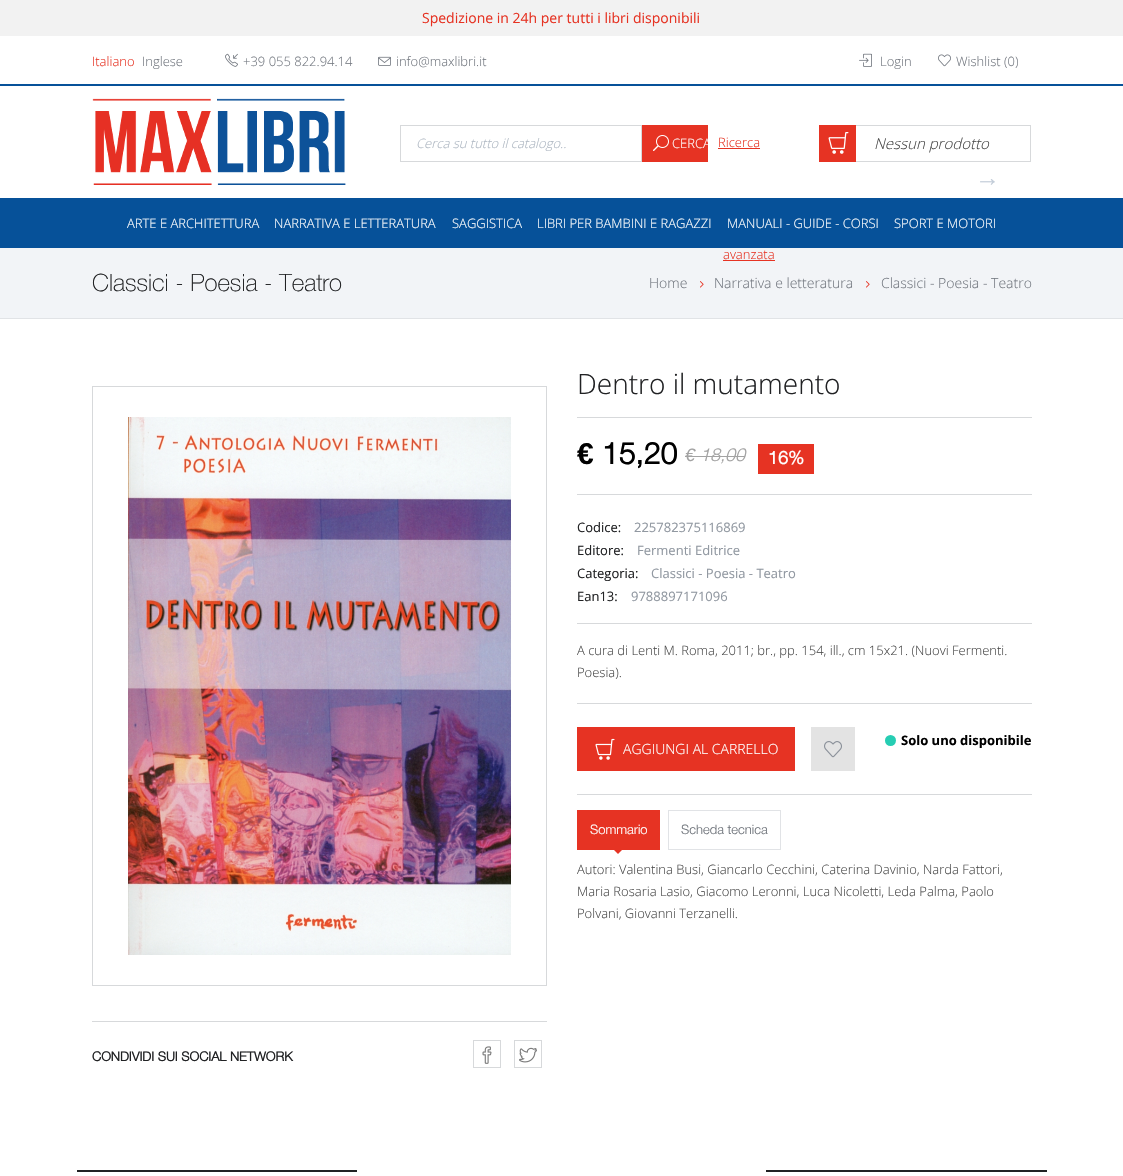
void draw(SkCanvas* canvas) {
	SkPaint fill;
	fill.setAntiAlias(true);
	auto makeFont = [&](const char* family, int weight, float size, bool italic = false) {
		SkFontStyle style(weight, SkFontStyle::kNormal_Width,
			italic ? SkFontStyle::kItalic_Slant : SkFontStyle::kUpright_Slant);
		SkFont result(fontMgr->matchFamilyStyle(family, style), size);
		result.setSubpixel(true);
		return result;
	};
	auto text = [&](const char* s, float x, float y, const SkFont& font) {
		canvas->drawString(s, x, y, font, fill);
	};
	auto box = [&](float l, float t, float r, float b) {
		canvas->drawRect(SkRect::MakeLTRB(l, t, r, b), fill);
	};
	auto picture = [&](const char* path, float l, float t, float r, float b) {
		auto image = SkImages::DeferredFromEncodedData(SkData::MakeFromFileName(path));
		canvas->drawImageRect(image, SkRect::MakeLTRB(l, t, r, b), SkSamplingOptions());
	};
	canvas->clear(0xFFFFFFFF);
	fill.setColor(0xFFF2F2F2);
	box(0, 0, 1123, 36);
	fill.setColor(0xFF065199);
	box(0, 84, 1123, 86);
	picture("image0.png", 225, 53, 238, 67);
	picture("image1.png", 378, 56, 391, 66);
	picture("image2.png", 859, 53, 872, 67);
	picture("image3.png", 938, 54, 951, 67);
	picture("image4.png", 92, 98, 346, 185);
	fill.setStyle(SkPaint::kStroke_Style);
	fill.setStrokeWidth(1);
	fill.setColor(0xFFD7D9DB);
	canvas->drawRect(SkRect::MakeLTRB(400.5f, 125.5f, 641.5f, 161.5f), fill);
	fill.setStyle(SkPaint::kFill_Style);
	fill.setColor(0xFFE63323);
	box(642, 125, 708, 162);
	picture("image5.png", 653, 135, 669, 151);
	box(718, 148, 760, 149);
	fill.setColor(0xFFF2F4F7);
	box(0, 248, 1123, 318);
	fill.setColor(0xFFE63323);
	box(723, 260, 775, 261);
	box(819, 125, 856, 162);
	picture("image6.png", 828, 132, 849, 154);
	fill.setColor(0xFFD7D9DB);
	box(856, 125, 1031, 126);
	box(1030, 125, 1031, 162);
	box(856, 161, 1031, 162);
	fill.setColor(0xFF065199);
	box(0, 198, 1123, 248);
	fill.setColor(0xFFE1E3E6);
	box(0, 318, 1123, 319);
	picture("image7.png", 700, 281, 704, 288);
	picture("image7.png", 866, 281, 870, 288);
	fill.setColor(0xFFD7D9DB);
	box(577, 417, 1032, 418);
	fill.setColor(0xFFA3A3A3);
	box(685, 456, 745, 457);
	fill.setColor(0xFFE63323);
	box(758, 444, 814, 474);
	fill.setColor(0xFFD7D9DB);
	box(577, 494, 1032, 495);
	box(577, 623, 1032, 624);
	box(577, 703, 1032, 704);
	fill.setColor(0xFFE63323);
	box(577, 727, 795, 771);
	picture("image8.png", 595, 738, 615, 760);
	fill.setColor(0xFFE3E3E3);
	box(811, 727, 855, 771);
	picture("image9.png", 824, 741, 842, 758);
	fill.setColor(0xFF26CDB3);
	canvas->drawCircle(890.5f, 740.5f, 5.5f, fill);
	fill.setColor(0xFFD7D9DB);
	box(577, 794, 1032, 795);
	fill.setColor(0xFFE63323);
	box(577, 810, 660, 850);
	canvas->drawPath(SkPathBuilder().moveTo(613, 849).lineTo(623, 849).lineTo(618, 854).close().detach(), fill);
	fill.setStyle(SkPaint::kStroke_Style);
	fill.setColor(0xFFE1E3E6);
	canvas->drawRect(SkRect::MakeLTRB(668.5f, 810.5f, 780.5f, 849.5f), fill);
	fill.setColor(0xFFD7D9DB);
	canvas->drawRect(SkRect::MakeLTRB(92.5f, 386.5f, 546.5f, 985.5f), fill);
	picture("image10.png", 128, 417, 511, 955);
	fill.setStyle(SkPaint::kFill_Style);
	box(92, 1021, 547, 1022);
	fill.setStyle(SkPaint::kStroke_Style);
	canvas->drawRect(SkRect::MakeLTRB(473.5f, 1040.5f, 500.5f, 1067.5f), fill);
	picture("image11.png", 482, 1046, 492, 1064);
	canvas->drawRect(SkRect::MakeLTRB(514.5f, 1040.5f, 541.5f, 1067.5f), fill);
	picture("image12.png", 519, 1047, 537, 1063);
	fill.setStyle(SkPaint::kFill_Style);
	fill.setColor(0xFF212224);
	box(77, 1170, 1047, 1172);
	fill.setColor(0xFFFFFFFF);
	box(357, 1170, 766, 1172);
	auto font1 = makeFont("Open Sans", 400, 14);
	fill.setColor(0xFFE63323);
	text("Spedizione in 24h per tutti i libri disponibili", 422, 23, font1);
	auto font2 = makeFont("Open Sans", 300, 13);
	text("Italiano", 92, 66, font2);
	fill.setColor(0xFF737880);
	text("Inglese", 142, 66, font2);
	text("+39 055 822.94.14", 243, 66, font2);
	text("info@maxlibri.it", 396, 66, font2);
	text("Login", 880, 66, font2);
	text("Wishlist (0)", 956, 66, font2);
	auto font3 = makeFont("Open Sans", 300, 13, true);
	fill.setColor(0xFFAEB7C2);
	text("Cerca su tutto il catalogo..", 416, 148, font3);
	fill.setColor(0xFFFFFFFF);
	text("CERCA", 672, 148, font2);
	fill.setColor(0xFFE63323);
	text("Ricerca", 718, 147, font2);
	text("avanzata", 723, 259, font2);
	auto font4 = makeFont("Open Sans", 300, 15, true);
	fill.setColor(0xFF4A4A4A);
	text("Nessun prodotto", 874, 149, font4);
	auto font5 = makeFont("Liberation Sans", 400, 25, true);
	fill.setColor(0xFFC3CDD9);
	text("→", 975, 186, font5);
	fill.setColor(0xFFFFFFFF);
	text("ARTE E ARCHITETTURA", 127, 228, font2);
	text("NARRATIVA E LETTERATURA", 274, 228, font2);
	text("SAGGISTICA", 452, 228, font2);
	text("LIBRI PER BAMBINI E RAGAZZI", 537, 228, font2);
	text("MANUALI - GUIDE - CORSI", 727, 228, font2);
	text("SPORT E MOTORI", 894, 228, font2);
	auto font6 = makeFont("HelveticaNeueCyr", 100, 24);
	fill.setColor(0xFF212224);
	text("Classici - Poesia - Teatro", 92, 291, font6);
	auto font7 = makeFont("Open Sans", 300, 14);
	fill.setColor(0xFF737880);
	text("Home", 649, 288, font7);
	text("Narrativa e letteratura", 714, 288, font7);
	text("Classici - Poesia - Teatro", 881, 288, font7);
	auto font8 = makeFont("Open Sans", 300, 28);
	fill.setColor(0xFF212224);
	text("Dentro il mutamento", 577, 394, font8);
	auto font9 = makeFont("Liberation Sans", 700, 30);
	fill.setColor(0xFF000000);
	text("€", 577, 464, font9);
	auto font10 = makeFont("HelveticaNeueCyr", 700, 30);
	text("15,20", 602, 464, font10);
	auto font11 = makeFont("Liberation Sans", 400, 18, true);
	fill.setColor(0xFFA3A3A3);
	text("€", 685, 461, font11);
	auto font12 = makeFont("HelveticaNeueCyr", 300, 18, true);
	text("18,00", 700, 461, font12);
	auto font13 = makeFont("HelveticaNeueCyr", 700, 18);
	fill.setColor(0xFFFFFFFF);
	text("16%", 768, 464, font13);
	auto font14 = makeFont("Open Sans", 400, 13);
	fill.setColor(0xFF212224);
	text("Codice:", 577, 532, font14);
	fill.setColor(0xFF9198A1);
	text("225782375116869", 634, 532, font14);
	fill.setColor(0xFF212224);
	text("Editore:", 577, 555, font14);
	fill.setColor(0xFF9198A1);
	text("Fermenti Editrice", 637, 555, font14);
	fill.setColor(0xFF212224);
	text("Categoria:", 577, 578, font14);
	fill.setColor(0xFF9198A1);
	text("Classici - Poesia - Teatro", 651, 578, font14);
	fill.setColor(0xFF212224);
	text("Ean13:", 577, 601, font14);
	fill.setColor(0xFF9198A1);
	text("9788897171096", 631, 601, font14);
	fill.setColor(0xFF4A4A4A);
	text("A cura di Lenti M. Roma, 2011; br., pp. 154, ill., cm 15x21. (Nuovi Fermenti.", 577, 655, font2);
	text("Poesia).", 577, 677, font2);
	fill.setColor(0xFFFFFFFF);
	text("AGGIUNGI AL CARRELLO", 623, 754, font7);
	auto font15 = makeFont("Open Sans", 700, 13);
	fill.setColor(0xFF000000);
	text("Solo uno disponibile", 901, 745, font15);
	auto font16 = makeFont("HelveticaNeueCyr", 300, 13);
	fill.setColor(0xFFFFFFFF);
	text("Sommario", 590, 834, font16);
	fill.setColor(0xFF6E737A);
	text("Scheda tecnica", 681, 834, font16);
	fill.setColor(0xFF4A4A4A);
	text("Autori: Valentina Busi, Giancarlo Cecchini, Caterina Davinio, Narda Fattori,", 577, 874, font2);
	text("Maria Rosaria Lasio, Giacomo Leronni, Luca Nicoletti, Leda Palma, Paolo", 577, 896, font2);
	text("Polvani, Giovanni Terzanelli.", 577, 918, font2);
	auto font17 = makeFont("HelveticaNeueCyr", 700, 13);
	fill.setColor(0xFF212224);
	text("CONDIVIDI SUI SOCIAL NETWORK", 92, 1061, font17);
}
